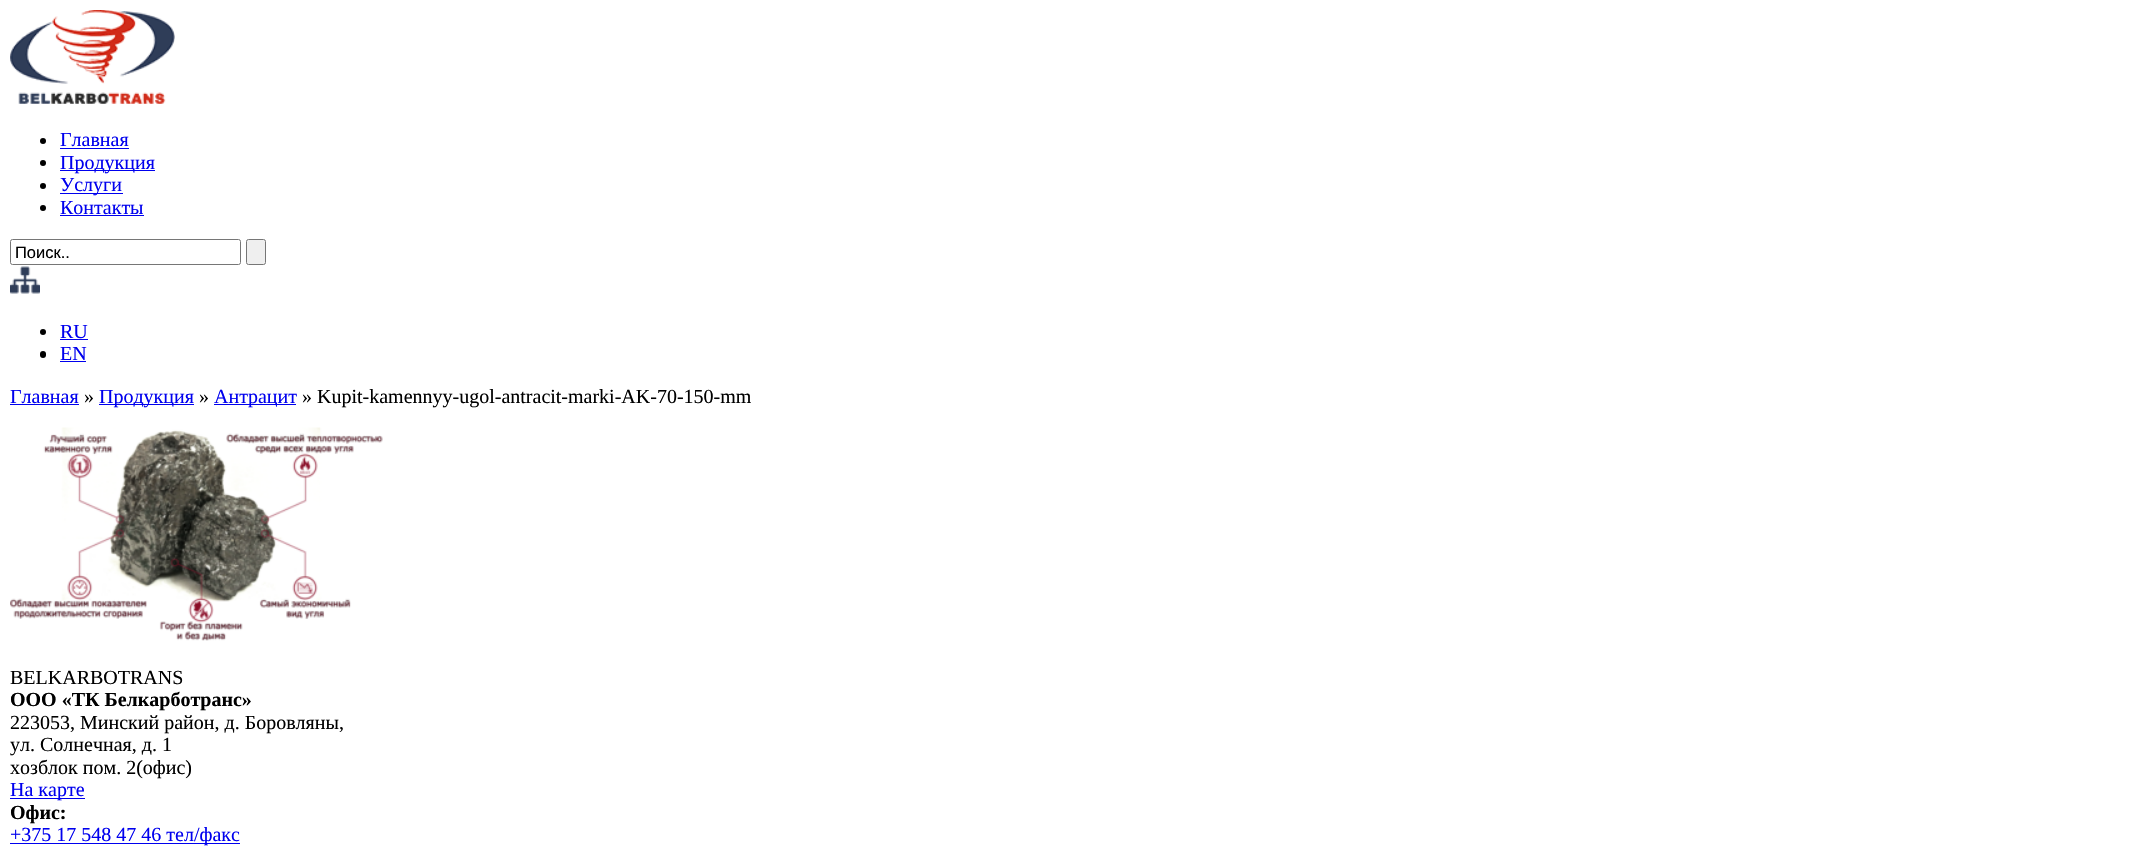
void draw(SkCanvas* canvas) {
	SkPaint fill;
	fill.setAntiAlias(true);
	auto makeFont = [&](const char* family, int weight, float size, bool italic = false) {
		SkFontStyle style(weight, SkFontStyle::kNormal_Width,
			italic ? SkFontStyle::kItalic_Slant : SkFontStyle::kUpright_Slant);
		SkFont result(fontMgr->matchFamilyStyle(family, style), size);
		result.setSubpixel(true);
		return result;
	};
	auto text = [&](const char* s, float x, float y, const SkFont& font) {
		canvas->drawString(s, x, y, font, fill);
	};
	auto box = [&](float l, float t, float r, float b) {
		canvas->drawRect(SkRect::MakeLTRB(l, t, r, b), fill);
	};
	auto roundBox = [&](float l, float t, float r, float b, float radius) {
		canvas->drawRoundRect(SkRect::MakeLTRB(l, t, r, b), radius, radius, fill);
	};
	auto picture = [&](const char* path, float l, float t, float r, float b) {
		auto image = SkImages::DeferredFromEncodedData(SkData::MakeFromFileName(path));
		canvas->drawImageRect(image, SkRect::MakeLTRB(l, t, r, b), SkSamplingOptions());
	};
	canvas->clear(0xFFFFFFFF);
	picture("image0.png", 10, 10, 175, 104);
	fill.setColor(0xFF000000);
	canvas->drawCircle(43, 141, 3, fill);
	fill.setColor(0xFF0000EE);
	box(60, 148, 129, 149);
	fill.setColor(0xFF000000);
	canvas->drawCircle(43, 163, 3, fill);
	fill.setColor(0xFF0000EE);
	box(60, 170, 155, 171);
	fill.setColor(0xFF000000);
	canvas->drawCircle(43, 186, 3, fill);
	fill.setColor(0xFF0000EE);
	box(60, 193, 123, 194);
	fill.setColor(0xFF000000);
	canvas->drawCircle(43, 208, 3, fill);
	fill.setColor(0xFF0000EE);
	box(60, 215, 144, 216);
	fill.setStyle(SkPaint::kStroke_Style);
	fill.setStrokeWidth(1);
	fill.setColor(0xFF767676);
	canvas->drawRoundRect(SkRect::MakeLTRB(10.5f, 239.5f, 240.5f, 264.5f), 2, 2, fill);
	fill.setStyle(SkPaint::kFill_Style);
	fill.setColor(0xFFEFEFEF);
	canvas->drawRoundRect(SkRect::MakeLTRB(246.5f, 239.5f, 265.5f, 264.5f), 2, 2, fill);
	fill.setStyle(SkPaint::kStroke_Style);
	fill.setColor(0xFF767676);
	canvas->drawRoundRect(SkRect::MakeLTRB(246.5f, 239.5f, 265.5f, 264.5f), 2, 2, fill);
	picture("image1.png", 10, 266, 40, 294);
	fill.setStyle(SkPaint::kFill_Style);
	fill.setColor(0xFF000000);
	canvas->drawCircle(43, 332, 3, fill);
	fill.setColor(0xFF0000EE);
	box(60, 339, 88, 340);
	fill.setColor(0xFF000000);
	roundBox(40, 351, 46, 358, 3);
	fill.setColor(0xFF0000EE);
	box(60, 361, 86, 362);
	box(10, 404, 79, 405);
	box(99, 404, 194, 405);
	box(214, 404, 296, 405);
	picture("image2.png", 10, 427, 383, 641);
	box(10, 798, 85, 799);
	box(10, 843, 240, 844);
	auto font1 = makeFont("Liberation Serif", 400, 20);
	text("Главная", 60, 146, font1);
	text("Продукция", 60, 169, font1);
	text("Услуги", 60, 191, font1);
	text("Контакты", 60, 214, font1);
	auto font2 = makeFont("Liberation Sans", 400, 16.5f);
	fill.setColor(0xFF000000);
	text("Поиск..", 15, 258, font2);
	fill.setColor(0xFF0000EE);
	text("RU", 60, 338, font1);
	text("EN", 60, 360, font1);
	text("Главная", 10, 403, font1);
	fill.setColor(0xFF000000);
	text("»", 84, 403, font1);
	fill.setColor(0xFF0000EE);
	text("Продукция", 99, 403, font1);
	fill.setColor(0xFF000000);
	text("»", 199, 403, font1);
	fill.setColor(0xFF0000EE);
	text("Антрацит", 214, 403, font1);
	fill.setColor(0xFF000000);
	text("» Kupit-kamennyy-ugol-antracit-marki-AK-70-150-mm", 302, 403, font1);
	text("BELKARBOTRANS", 10, 684, font1);
	auto font3 = makeFont("Liberation Serif", 700, 20);
	text("ООО «ТК Белкарботранс»", 10, 706, font3);
	text("223053, Минский район, д. Боровляны,", 10, 729, font1);
	text("ул. Солнечная, д. 1", 10, 751, font1);
	text("хозблок пом. 2(офис)", 10, 774, font1);
	fill.setColor(0xFF0000EE);
	text("На карте", 10, 796, font1);
	fill.setColor(0xFF000000);
	text("Офис:", 10, 819, font3);
	fill.setColor(0xFF0000EE);
	text("+375 17 548 47 46 тел/факс", 10, 841, font1);
}
